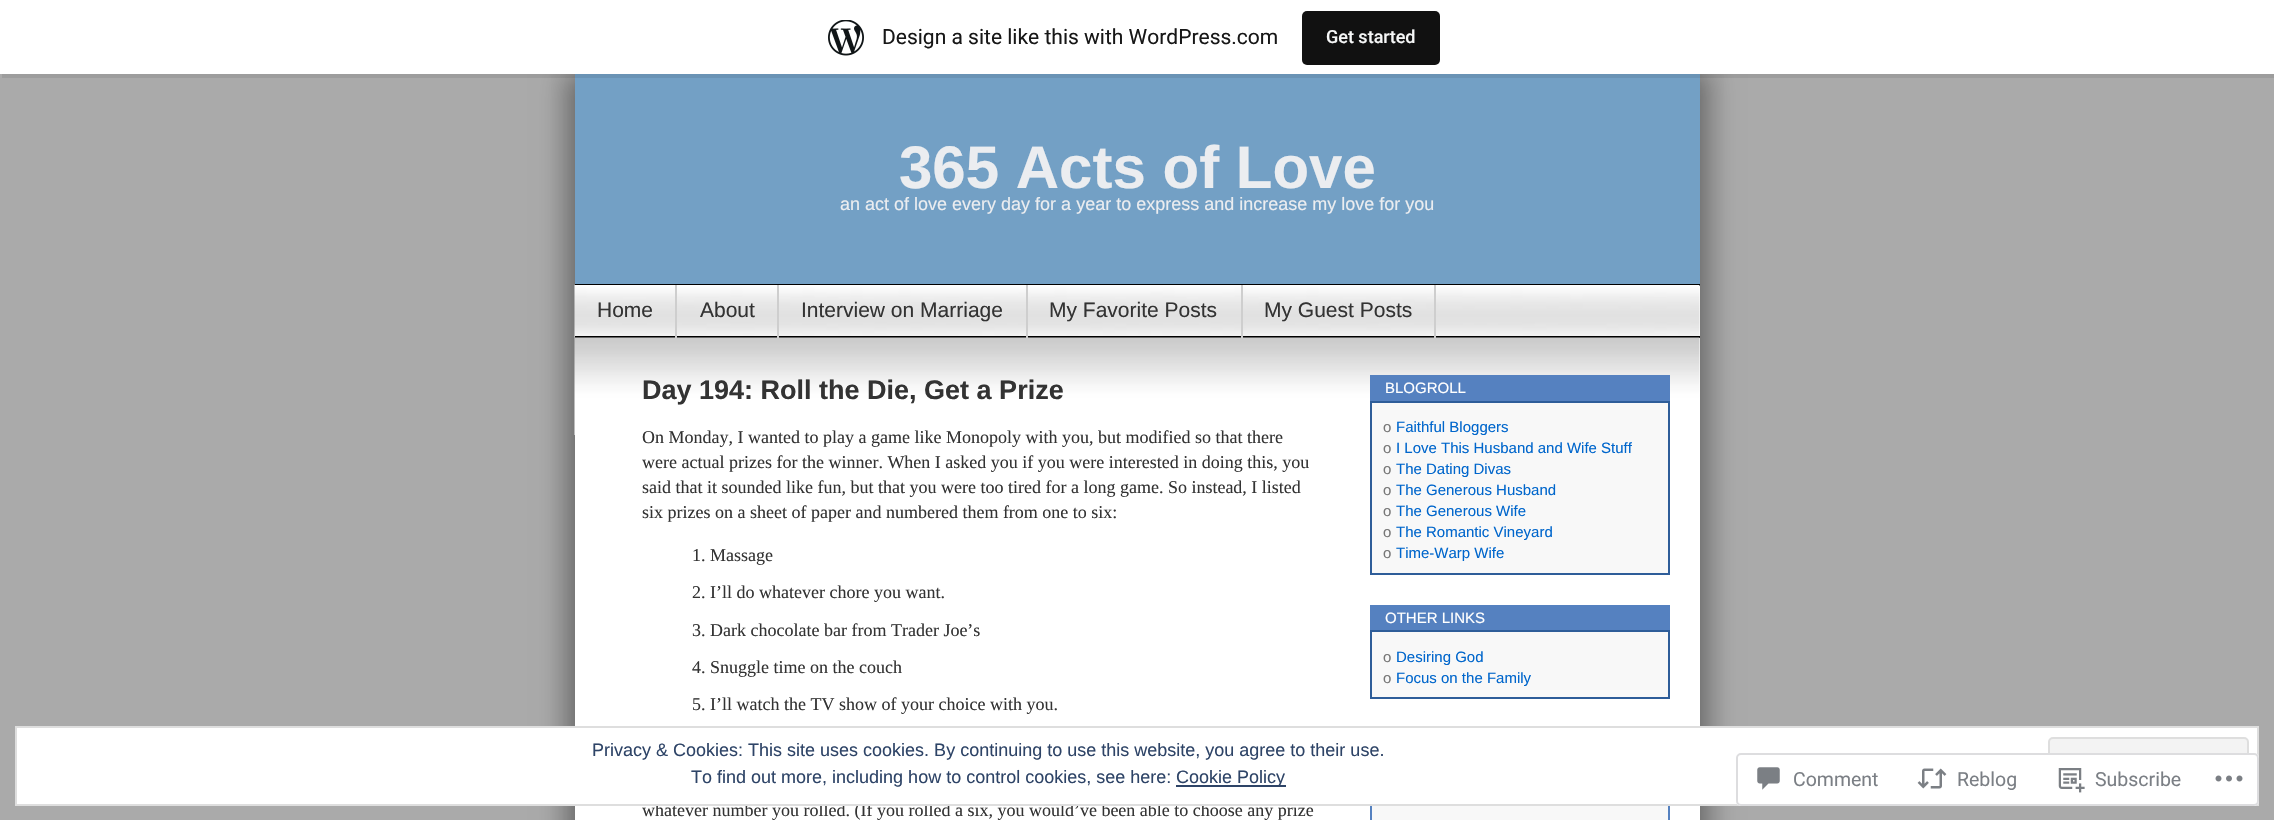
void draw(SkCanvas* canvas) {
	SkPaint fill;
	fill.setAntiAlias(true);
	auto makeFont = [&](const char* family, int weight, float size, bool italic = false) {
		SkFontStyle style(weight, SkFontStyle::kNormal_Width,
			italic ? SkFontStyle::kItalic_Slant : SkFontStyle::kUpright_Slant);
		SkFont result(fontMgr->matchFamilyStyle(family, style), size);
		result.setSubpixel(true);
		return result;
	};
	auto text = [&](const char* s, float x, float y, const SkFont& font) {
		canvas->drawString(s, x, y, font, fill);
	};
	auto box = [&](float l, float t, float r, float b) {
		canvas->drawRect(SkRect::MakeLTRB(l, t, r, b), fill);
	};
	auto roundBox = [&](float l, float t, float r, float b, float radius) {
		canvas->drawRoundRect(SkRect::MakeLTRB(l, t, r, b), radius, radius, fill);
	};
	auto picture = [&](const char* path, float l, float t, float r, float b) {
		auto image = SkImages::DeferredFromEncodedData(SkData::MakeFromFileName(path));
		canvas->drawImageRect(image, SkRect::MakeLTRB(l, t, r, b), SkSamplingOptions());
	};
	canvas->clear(0xFFAAAAAA);
	fill.setColor(0x4D000000);
	fill.setMaskFilter(SkMaskFilter::MakeBlur(kNormal_SkBlurStyle, 12));
	canvas->drawRect(SkRect::MakeLTRB(563, 74, 1688, 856), fill);
	fill.setMaskFilter(nullptr);
	fill.setMaskFilter(SkMaskFilter::MakeBlur(kNormal_SkBlurStyle, 12));
	canvas->drawRect(SkRect::MakeLTRB(587, 71, 1712, 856), fill);
	fill.setMaskFilter(nullptr);
	fill.setColor(0xFF73A0C5);
	box(575, 74, 1700, 284);
	fill.setColor(0x14000000);
	canvas->drawPath(SkPathBuilder().moveTo(2, 74).lineTo(2, 78).lineTo(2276, 78).lineTo(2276, 5).lineTo(2274, 5).lineTo(2274, 74).close().detach(), fill);
	fill.setColor(0xFFFFFFFF);
	box(0, 0, 2274, 74);
	picture("image0.png", 828, 20, 864, 56);
	fill.setColor(0xFF111111);
	roundBox(1302, 11, 1440, 65, 5);
	fill.setColor(0xFFFFFFFF);
	box(575, 286, 1700, 820);
	fill.setColor(0xFF000000);
	box(575, 284, 1700, 286);
	picture("image1.png", 574, 285, 1700, 338);
	box(575, 336, 1700, 338);
	picture("image2.png", 574, 337, 1700, 435);
	fill.setColor(0xFFCECECE);
	box(675, 285, 677, 338);
	box(777, 285, 779, 338);
	box(1026, 285, 1028, 338);
	box(1241, 285, 1243, 338);
	box(1434, 285, 1436, 338);
	fill.setColor(0xFF5581C0);
	box(1370, 375, 1670, 401);
	fill.setColor(0xFFF8F8F8);
	canvas->drawRect(SkRect::MakeLTRB(1371, 402, 1669, 574), fill);
	fill.setStyle(SkPaint::kStroke_Style);
	fill.setStrokeWidth(2);
	fill.setColor(0xFF2E5D99);
	canvas->drawRect(SkRect::MakeLTRB(1371, 402, 1669, 574), fill);
	fill.setStyle(SkPaint::kFill_Style);
	fill.setColor(0xFF5581C0);
	box(1370, 605, 1670, 630);
	fill.setColor(0xFFF8F8F8);
	canvas->drawRect(SkRect::MakeLTRB(1371, 631, 1669, 698), fill);
	fill.setStyle(SkPaint::kStroke_Style);
	fill.setColor(0xFF2E5D99);
	canvas->drawRect(SkRect::MakeLTRB(1371, 631, 1669, 698), fill);
	fill.setStyle(SkPaint::kFill_Style);
	fill.setColor(0xFFF8F8F8);
	box(1372, 806, 1668, 820);
	fill.setColor(0xFF5581C0);
	box(1668, 804, 1670, 820);
	box(1370, 804, 1372, 820);
	auto font1 = makeFont("Roboto", 400, 21);
	fill.setColor(0xFF171717);
	text("Design a site like this with WordPress.com", 882, 44, font1);
	auto font2 = makeFont("Roboto", 500, 18);
	fill.setColor(0xFFF6F7F7);
	text("Get started", 1326, 43, font2);
	auto font3 = makeFont("Liberation Sans", 700, 60);
	fill.setColor(0xFFEBEDF0);
	text("365 Acts of Love", 899, 188, font3);
	auto font4 = makeFont("Liberation Sans", 400, 18);
	text("an act of love every day for a year to express and increase my love for you", 840, 210, font4);
	auto font5 = makeFont("Liberation Sans", 400, 21);
	fill.setColor(0xFF333333);
	text("Home", 597, 317, font5);
	text("About", 700, 317, font5);
	text("Interview on Marriage", 801, 317, font5);
	text("My Favorite Posts", 1049, 317, font5);
	text("My Guest Posts", 1264, 317, font5);
	auto font6 = makeFont("Liberation Sans", 700, 27);
	text("Day 194: Roll the Die, Get a Prize", 642, 399, font6);
	auto font7 = makeFont("Liberation Serif", 400, 18);
	text("On Monday, I wanted to play a game like Monopoly with you, but modified so that there", 642, 443, font7);
	text("were actual prizes for the winner. When I asked you if you were interested in doing this, you", 642, 468, font7);
	text("said that it sounded like fun, but that you were too tired for a long game. So instead, I listed", 642, 493, font7);
	text("six prizes on a sheet of paper and numbered them from one to six:", 642, 518, font7);
	text("1. Massage", 692, 561, font7);
	text("2. I’ll do whatever chore you want.", 692, 598, font7);
	text("3. Dark chocolate bar from Trader Joe’s", 692, 636, font7);
	text("4. Snuggle time on the couch", 692, 673, font7);
	text("5. I’ll watch the TV show of your choice with you.", 692, 710, font7);
	text("whatever number you rolled. (If you rolled a six, you would’ve been able to choose any prize", 642, 816, font7);
	auto font8 = makeFont("Liberation Sans", 400, 15);
	fill.setColor(0xFFFFFFFF);
	text("BLOGROLL", 1385, 393, font8);
	fill.setColor(0xFF777777);
	text("o", 1383, 432, font8);
	fill.setColor(0xFF0066CC);
	text("Faithful Bloggers", 1396, 432, font8);
	fill.setColor(0xFF777777);
	text("o", 1383, 453, font8);
	fill.setColor(0xFF0066CC);
	text("I Love This Husband and Wife Stuff", 1396, 453, font8);
	fill.setColor(0xFF777777);
	text("o", 1383, 474, font8);
	fill.setColor(0xFF0066CC);
	text("The Dating Divas", 1396, 474, font8);
	fill.setColor(0xFF777777);
	text("o", 1383, 495, font8);
	fill.setColor(0xFF0066CC);
	text("The Generous Husband", 1396, 495, font8);
	fill.setColor(0xFF777777);
	text("o", 1383, 516, font8);
	fill.setColor(0xFF0066CC);
	text("The Generous Wife", 1396, 516, font8);
	fill.setColor(0xFF777777);
	text("o", 1383, 537, font8);
	fill.setColor(0xFF0066CC);
	text("The Romantic Vineyard", 1396, 537, font8);
	fill.setColor(0xFF777777);
	text("o", 1383, 558, font8);
	fill.setColor(0xFF0066CC);
	text("Time-Warp Wife", 1396, 558, font8);
	fill.setColor(0xFFFFFFFF);
	text("OTHER LINKS", 1385, 623, font8);
	fill.setColor(0xFF777777);
	text("o", 1383, 662, font8);
	fill.setColor(0xFF0066CC);
	text("Desiring God", 1396, 662, font8);
	fill.setColor(0xFF777777);
	text("o", 1383, 683, font8);
	fill.setColor(0xFF0066CC);
	text("Focus on the Family", 1396, 683, font8);
	fill.setColor(0xFFFFFFFF);
	canvas->drawRect(SkRect::MakeLTRB(16, 727, 2258, 805), fill);
	fill.setStyle(SkPaint::kStroke_Style);
	fill.setColor(0xFFDEDEDE);
	canvas->drawRect(SkRect::MakeLTRB(16, 727, 2258, 805), fill);
	fill.setStyle(SkPaint::kFill_Style);
	fill.setColor(0xFF2E4467);
	text("Privacy & Cookies: This site uses cookies. By continuing to use this website, you agree to their use.", 592, 756, font4);
	fill.setColor(0xFFF3F3F3);
	canvas->drawRoundRect(SkRect::MakeLTRB(2049, 738, 2248, 794), 4, 4, fill);
	fill.setStyle(SkPaint::kStroke_Style);
	fill.setColor(0xFFDEDEDE);
	canvas->drawRoundRect(SkRect::MakeLTRB(2049, 738, 2248, 794), 4, 4, fill);
	fill.setStyle(SkPaint::kFill_Style);
	fill.setColor(0xFF2E4467);
	text("To find out more, including how to control cookies, see here:", 691, 783, font4);
	box(1176, 785, 1286, 787);
	text("Cookie Policy", 1176, 783, font4);
	fill.setColor(0xFAFFFFFF);
	roundBox(1736, 753, 2259, 806, 5);
	fill.setStyle(SkPaint::kStroke_Style);
	fill.setColor(0xFADCDCDE);
	canvas->drawRoundRect(SkRect::MakeLTRB(1737, 754, 2258, 805), 4, 4, fill);
	picture("image3.png", 1757, 767, 1780, 790);
	auto font9 = makeFont("Roboto", 400, 19.5f);
	fill.setStyle(SkPaint::kFill_Style);
	fill.setColor(0xFF7B7F85);
	text("Comment", 1793, 786, font9);
	picture("image4.png", 1917, 768, 1947, 789);
	text("Reblog", 1957, 786, font9);
	picture("image5.png", 2058, 768, 2085, 793);
	text("Subscribe", 2095, 786, font9);
	picture("image6.png", 2215, 775, 2243, 782);
}
